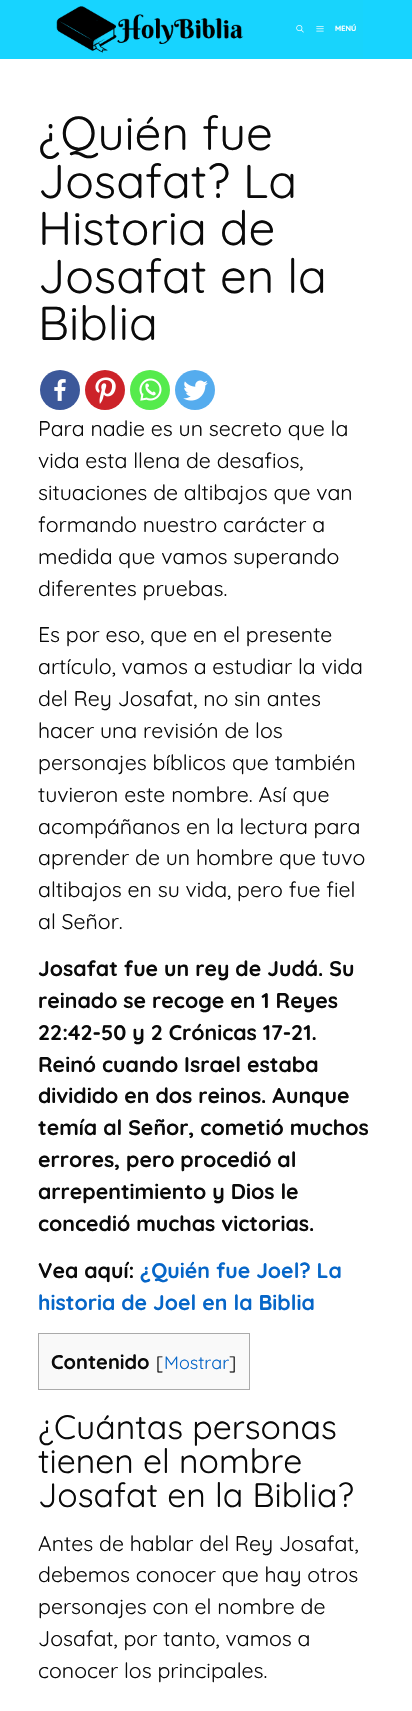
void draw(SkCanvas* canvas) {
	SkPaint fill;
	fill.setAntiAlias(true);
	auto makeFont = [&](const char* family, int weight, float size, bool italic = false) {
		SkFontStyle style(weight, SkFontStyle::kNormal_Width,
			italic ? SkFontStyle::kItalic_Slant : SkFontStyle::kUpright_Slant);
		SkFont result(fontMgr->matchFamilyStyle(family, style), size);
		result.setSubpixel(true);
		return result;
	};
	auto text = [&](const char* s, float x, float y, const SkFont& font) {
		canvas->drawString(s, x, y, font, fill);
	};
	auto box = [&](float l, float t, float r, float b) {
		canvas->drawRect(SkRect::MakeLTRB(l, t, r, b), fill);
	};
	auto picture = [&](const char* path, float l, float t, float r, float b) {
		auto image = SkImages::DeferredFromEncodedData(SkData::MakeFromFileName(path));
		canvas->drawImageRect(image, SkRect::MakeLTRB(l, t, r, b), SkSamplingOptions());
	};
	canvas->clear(0xFFFFFFFF);
	fill.setColor(0xFF17D4FF);
	box(0, 0, 412, 59);
	picture("image0.png", 56, 6, 244, 53);
	fill.setColor(0xFF18D4FC);
	box(310, 0, 363, 59);
	picture("image1.png", 296, 25, 304, 33);
	picture("image2.png", 316, 26, 324, 32);
	fill.setColor(0xFF3C589A);
	canvas->drawCircle(60, 390, 20, fill);
	picture("image3.png", 54, 379, 66, 401);
	fill.setColor(0xFFCC2329);
	canvas->drawCircle(105, 390, 20, fill);
	picture("image4.png", 95, 377, 116, 404);
	fill.setColor(0xFF55EB4C);
	canvas->drawCircle(150, 390, 20, fill);
	picture("image5.png", 139, 378, 162, 401);
	fill.setColor(0xFF55ACEE);
	canvas->drawCircle(195, 390, 20, fill);
	picture("image6.png", 183, 380, 208, 401);
	fill.setColor(0xFFF9F9F9);
	canvas->drawRect(SkRect::MakeLTRB(38.5f, 1333.5f, 249.5f, 1389.5f), fill);
	fill.setStyle(SkPaint::kStroke_Style);
	fill.setStrokeWidth(1);
	fill.setColor(0xFFAAAAAA);
	canvas->drawRect(SkRect::MakeLTRB(38.5f, 1333.5f, 249.5f, 1389.5f), fill);
	auto font1 = makeFont("Quicksand", 700, 7.5f);
	fill.setStyle(SkPaint::kFill_Style);
	fill.setColor(0xFFFFFFFF);
	text("MENÚ", 335, 31, font1);
	auto font2 = makeFont("Quicksand", 400, 47.5f);
	fill.setColor(0xFF0A0A0A);
	text("¿Quién fue", 38, 150, font2);
	text("Josafat? La", 38, 198, font2);
	text("Historia de", 38, 245, font2);
	text("Josafat en la", 38, 293, font2);
	text("Biblia", 38, 340, font2);
	auto font3 = makeFont("Quicksand", 400, 21.25f);
	text("Para nadie es un secreto que la", 38, 436, font3);
	text("vida esta llena de desafios,", 38, 468, font3);
	text("situaciones de altibajos que van", 38, 500, font3);
	text("formando nuestro carácter a", 38, 532, font3);
	text("medida que vamos superando", 38, 564, font3);
	text("diferentes pruebas.", 38, 596, font3);
	text("Es por eso, que en el presente", 38, 642, font3);
	text("artículo, vamos a estudiar la vida", 38, 674, font3);
	text("del Rey Josafat, no sin antes", 38, 706, font3);
	text("hacer una revisión de los", 38, 738, font3);
	text("personajes bíblicos que también", 38, 770, font3);
	text("tuvieron este nombre. Así que", 38, 802, font3);
	text("acompáñanos en la lectura para", 38, 834, font3);
	text("aprender de un hombre que tuvo", 38, 865, font3);
	text("altibajos en su vida, pero fue fiel", 38, 897, font3);
	text("al Señor.", 38, 929, font3);
	auto font4 = makeFont("Quicksand", 700, 21.25f);
	text("Josafat fue un rey de Judá. Su", 38, 976, font4);
	text("reinado se recoge en 1 Reyes", 38, 1008, font4);
	text("22:42-50 y 2 Crónicas 17-21.", 38, 1040, font4);
	text("Reinó cuando Israel estaba", 38, 1072, font4);
	text("dividido en dos reinos. Aunque", 38, 1103, font4);
	text("temía al Señor, cometió muchos", 38, 1135, font4);
	text("errores, pero procedió al", 38, 1167, font4);
	text("arrepentimiento y Dios le", 38, 1199, font4);
	text("concedió muchas victorias.", 38, 1231, font4);
	text("Vea aquí:", 38, 1278, font4);
	fill.setColor(0xFF0666C8);
	text("¿Quién fue Joel? La", 140, 1278, font4);
	text("historia de Joel en la Biblia", 38, 1310, font4);
	auto font5 = makeFont("Quicksand", 700, 20);
	fill.setColor(0xFF0A0A0A);
	text("Contenido", 51, 1369, font5);
	auto font6 = makeFont("Quicksand", 400, 18);
	text("[", 156, 1369, font6);
	fill.setColor(0xFF0666C8);
	text("Mostrar", 164, 1369, font6);
	fill.setColor(0xFF0A0A0A);
	text("]", 229, 1369, font6);
	auto font7 = makeFont("Quicksand", 400, 33.75f);
	text("¿Cuántas personas", 38, 1439, font7);
	text("tienen el nombre", 38, 1473, font7);
	text("Josafat en la Biblia?", 38, 1507, font7);
	text("Antes de hablar del Rey Josafat,", 38, 1551, font3);
	text("debemos conocer que hay otros", 38, 1582, font3);
	text("personajes con el nombre de", 38, 1614, font3);
	text("Josafat, por tanto, vamos a", 38, 1646, font3);
	text("conocer los principales.", 38, 1678, font3);
}
